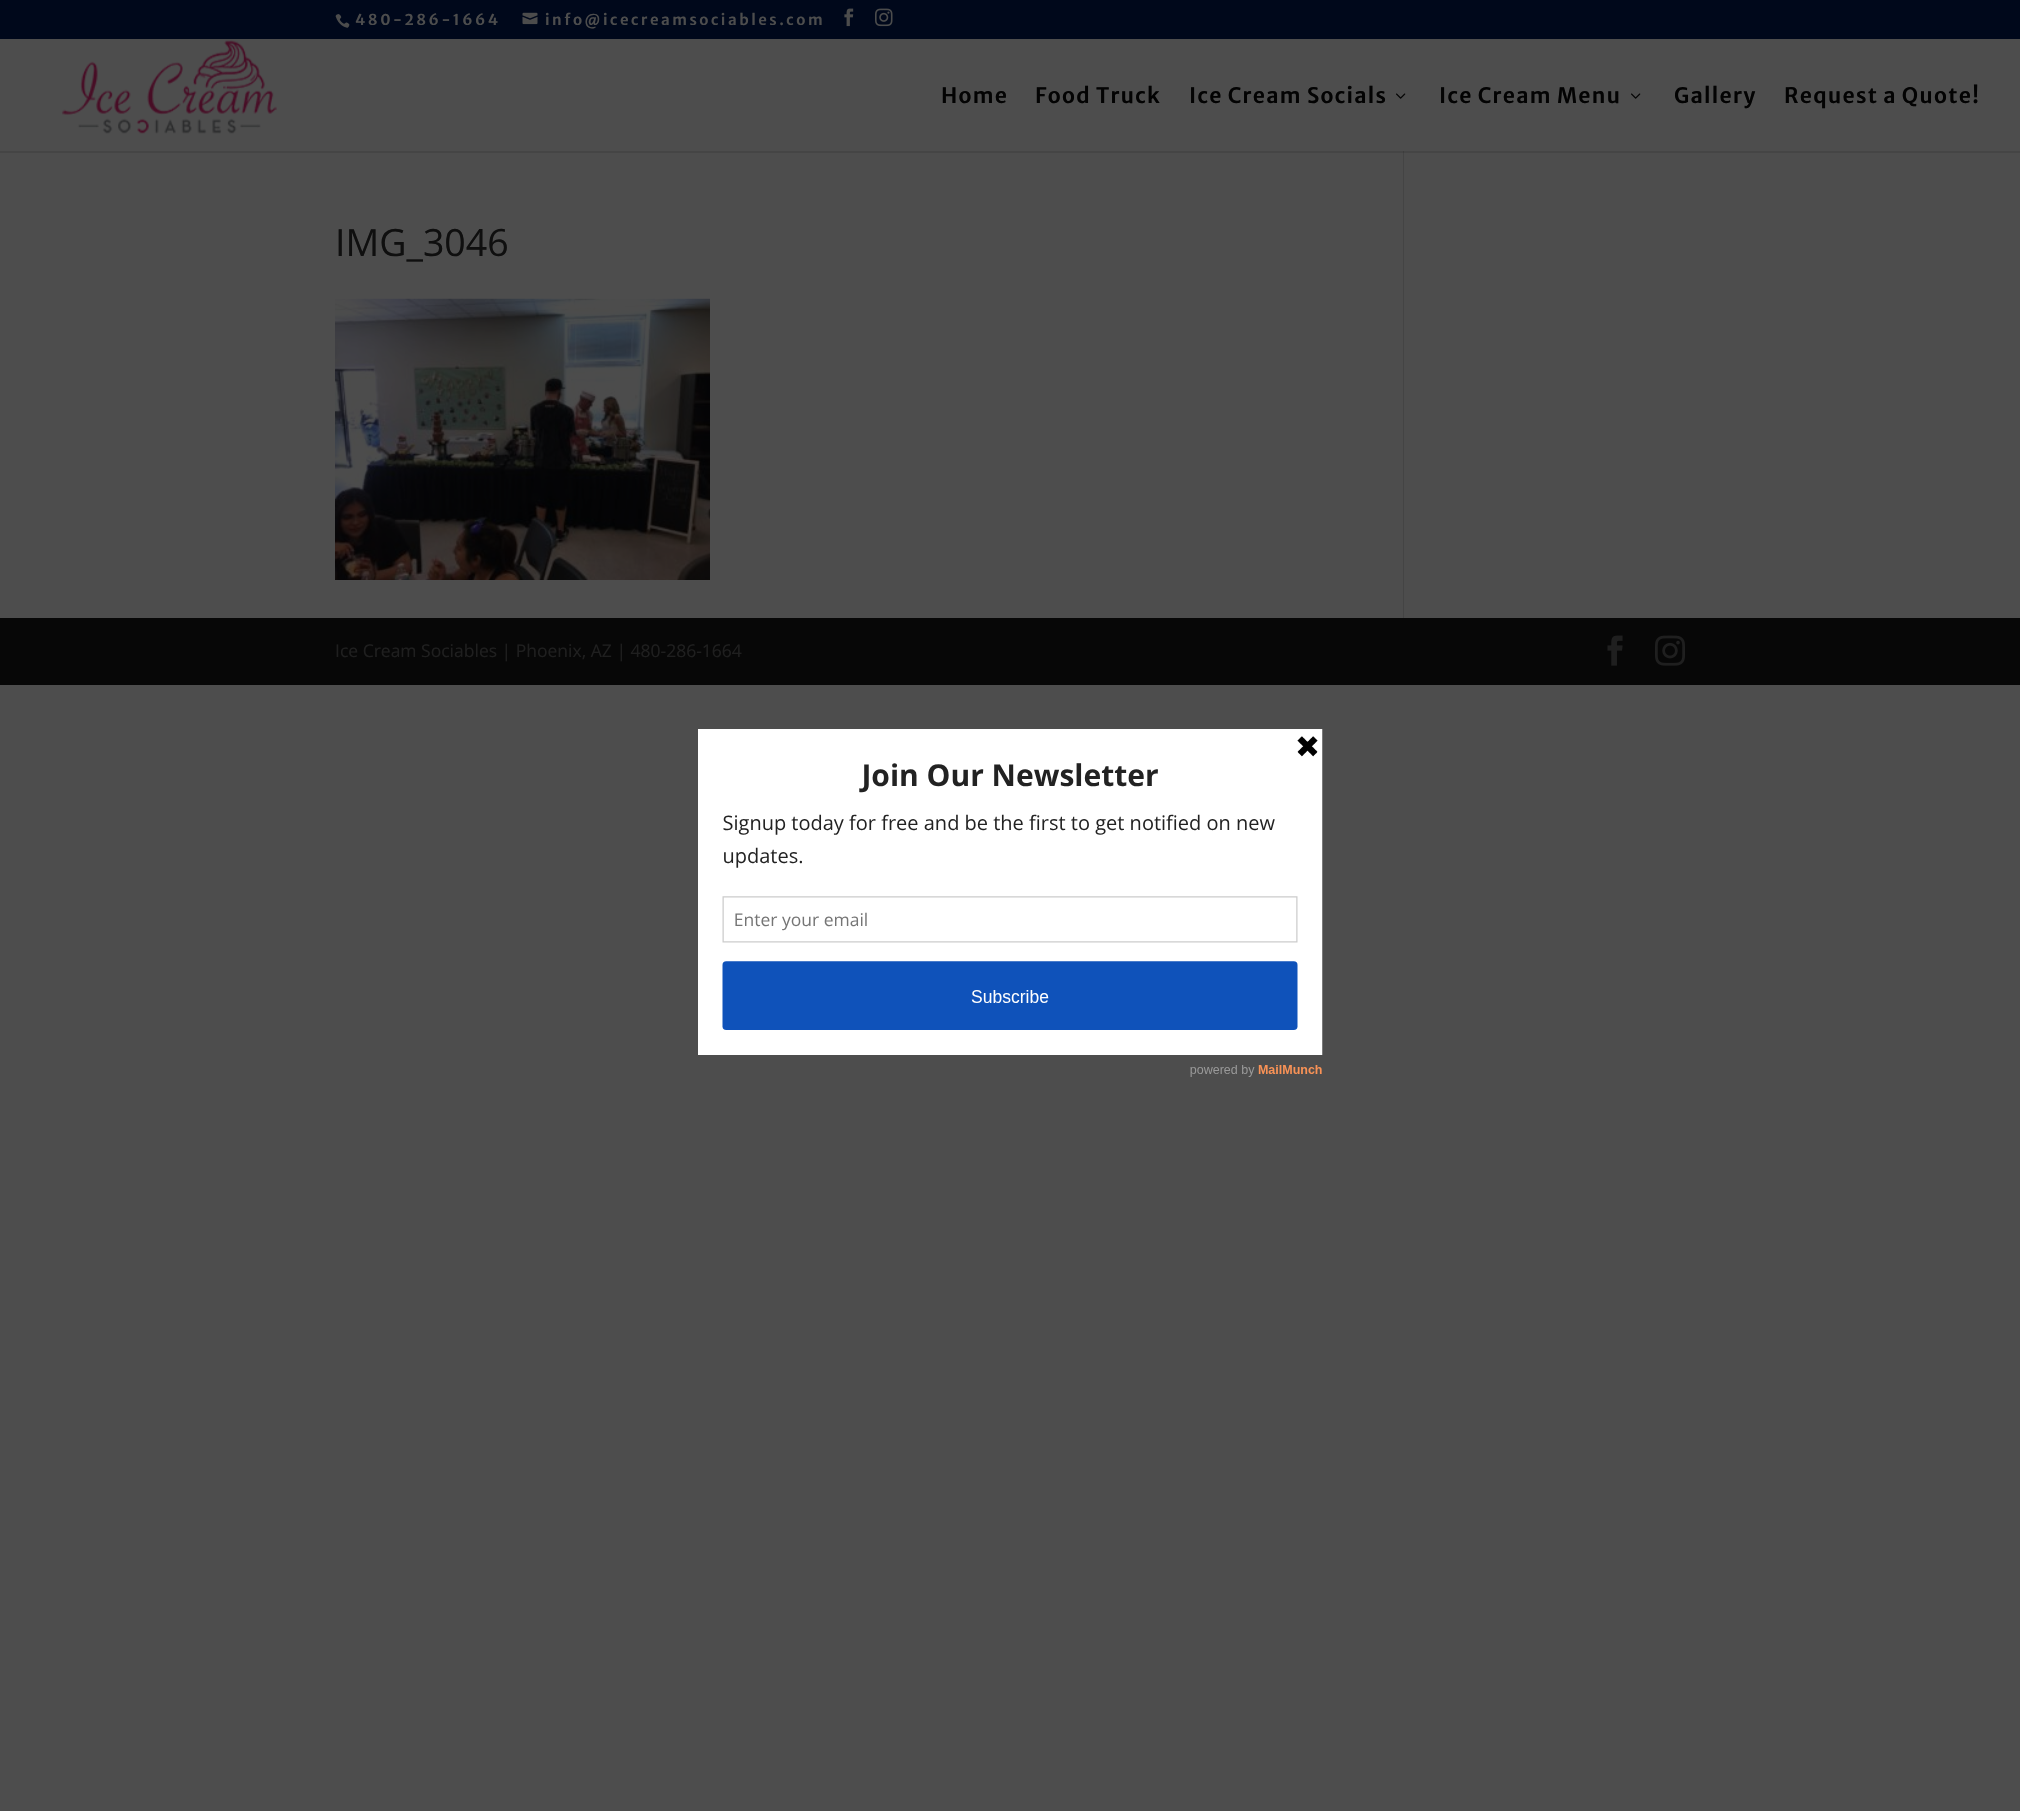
void draw(SkCanvas* canvas) {
	SkPaint fill;
	fill.setAntiAlias(true);
	auto makeFont = [&](const char* family, int weight, float size, bool italic = false) {
		SkFontStyle style(weight, SkFontStyle::kNormal_Width,
			italic ? SkFontStyle::kItalic_Slant : SkFontStyle::kUpright_Slant);
		SkFont result(fontMgr->matchFamilyStyle(family, style), size);
		result.setSubpixel(true);
		return result;
	};
	auto text = [&](const char* s, float x, float y, const SkFont& font) {
		canvas->drawString(s, x, y, font, fill);
	};
	auto spacedText = [&](const char* s, float x, float y, const SkFont& font, const SkPaint& ink, float letter, float word) {
		std::vector<SkGlyphID> glyphs(font.countText(s, strlen(s), SkTextEncoding::kUTF8));
		std::vector<float> xs(glyphs.size());
		font.textToGlyphs(s, strlen(s), SkTextEncoding::kUTF8, glyphs);
		font.getXPos(glyphs, xs, x);
		float extra = 0;
		for (size_t i = 0; i < glyphs.size(); i++) {
			xs[i] += extra;
			extra += letter + word * (glyphs[i] == font.unicharToGlyph(' '));
		}
		canvas->drawTextBlob(SkTextBlob::MakeFromPosHGlyphs(glyphs, xs, y, font), 0, 0, ink);
	};
	auto box = [&](float l, float t, float r, float b) {
		canvas->drawRect(SkRect::MakeLTRB(l, t, r, b), fill);
	};
	auto picture = [&](const char* path, float l, float t, float r, float b) {
		auto image = SkImages::DeferredFromEncodedData(SkData::MakeFromFileName(path));
		canvas->drawImageRect(image, SkRect::MakeLTRB(l, t, r, b), SkSamplingOptions());
	};
	canvas->clear(0xFF4D4D4D);
	fill.setColor(0xFF454545);
	box(0, 151, 2020, 153);
	fill.setColor(0xFF00081B);
	box(0, 0, 2020, 39);
	picture("image0.png", 335, 14, 350, 28);
	picture("image1.png", 522, 12, 538, 25);
	picture("image2.png", 844, 8, 854, 27);
	picture("image3.png", 875, 8, 893, 27);
	picture("image4.png", 61, 40, 277, 134);
	picture("image5.png", 1396, 93, 1406, 99);
	picture("image5.png", 1631, 93, 1641, 99);
	picture("image6.png", 335, 298, 710, 580);
	fill.setColor(0xFF444444);
	box(1403, 151, 1404, 618);
	fill.setColor(0xFF3D3D3D);
	box(1403, 151, 1404, 153);
	fill.setColor(0xFF070707);
	box(0, 618, 2020, 685);
	picture("image7.png", 1607, 635, 1623, 666);
	picture("image8.png", 1655, 635, 1685, 666);
	picture("image9.png", 698, 729, 1323, 1077);
	auto font1 = makeFont("Merriweather Sans", 600, 15);
	fill.setColor(0xFF4D4D4D);
	spacedText("480-286-1664", 355, 25, font1, fill, 2.5f, 0);
	spacedText("info@icecreamsociables.com", 545, 25, font1, fill, 2.5f, 0);
	auto font2 = makeFont("Merriweather Sans", 600, 21.25f);
	fill.setColor(0xFF030303);
	spacedText("Home", 941, 103, font2, fill, 1.25f, 0);
	spacedText("Food Truck", 1035, 103, font2, fill, 1.25f, 0);
	spacedText("Ice Cream Socials", 1189, 103, font2, fill, 1.25f, 0);
	spacedText("Ice Cream Menu", 1439, 103, font2, fill, 1.25f, 0);
	spacedText("Gallery", 1674, 103, font2, fill, 1.25f, 0);
	spacedText("Request a Quote!", 1784, 103, font2, fill, 1.25f, 0);
	auto font3 = makeFont("Open Sans", 400, 37.5f);
	fill.setColor(0xFF0F0F0F);
	text("IMG_3046", 335, 256, font3);
	auto font4 = makeFont("Open Sans", 400, 17.5f);
	fill.setColor(0xFF1F1F1F);
	text("Ice Cream Sociables | Phoenix, AZ | 480-286-1664", 335, 657, font4);
}
